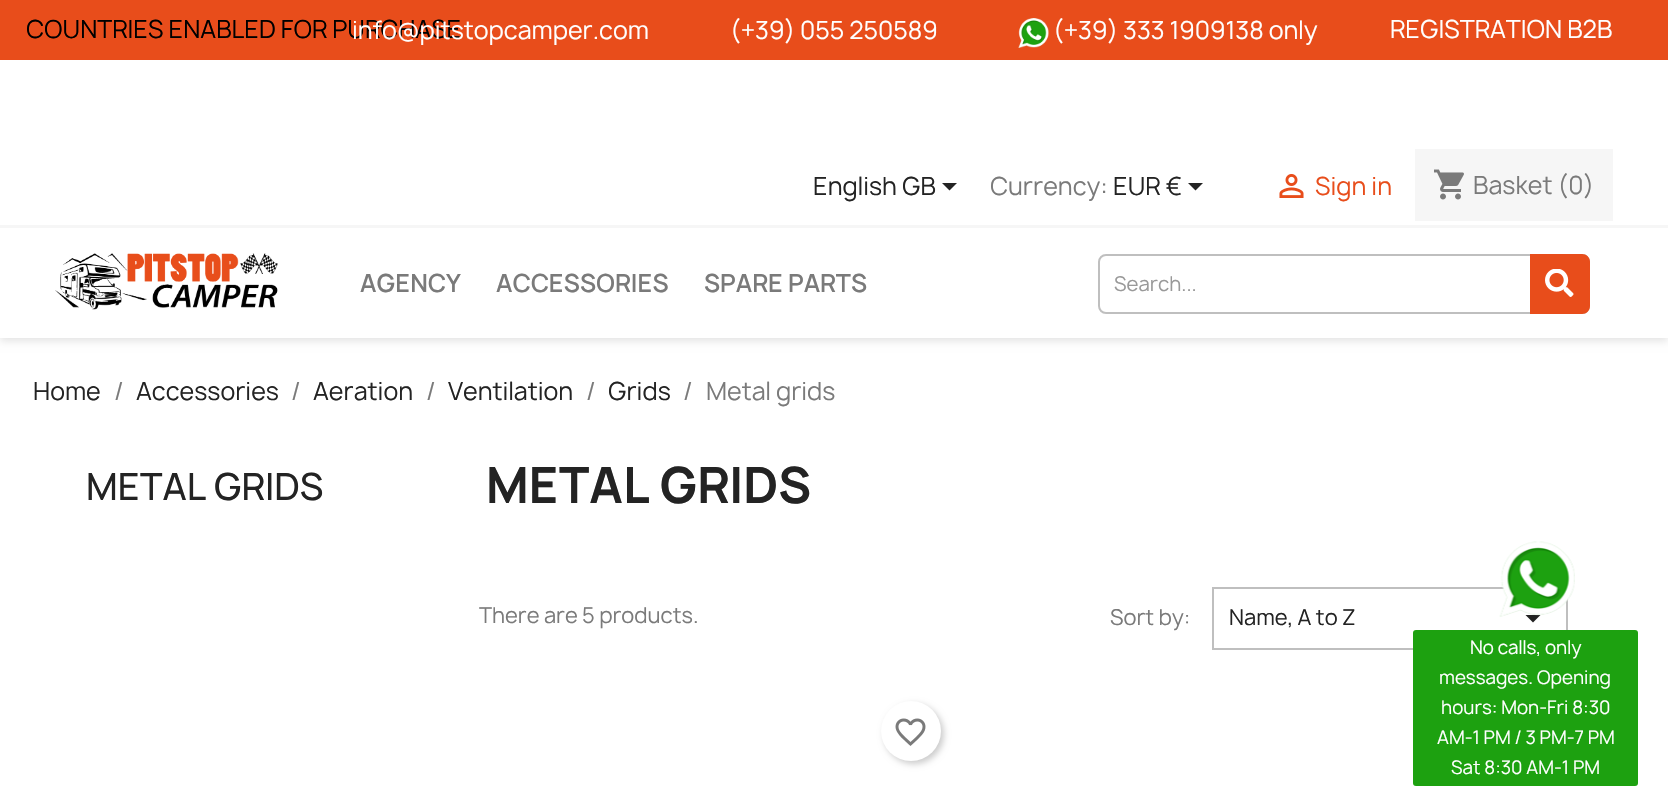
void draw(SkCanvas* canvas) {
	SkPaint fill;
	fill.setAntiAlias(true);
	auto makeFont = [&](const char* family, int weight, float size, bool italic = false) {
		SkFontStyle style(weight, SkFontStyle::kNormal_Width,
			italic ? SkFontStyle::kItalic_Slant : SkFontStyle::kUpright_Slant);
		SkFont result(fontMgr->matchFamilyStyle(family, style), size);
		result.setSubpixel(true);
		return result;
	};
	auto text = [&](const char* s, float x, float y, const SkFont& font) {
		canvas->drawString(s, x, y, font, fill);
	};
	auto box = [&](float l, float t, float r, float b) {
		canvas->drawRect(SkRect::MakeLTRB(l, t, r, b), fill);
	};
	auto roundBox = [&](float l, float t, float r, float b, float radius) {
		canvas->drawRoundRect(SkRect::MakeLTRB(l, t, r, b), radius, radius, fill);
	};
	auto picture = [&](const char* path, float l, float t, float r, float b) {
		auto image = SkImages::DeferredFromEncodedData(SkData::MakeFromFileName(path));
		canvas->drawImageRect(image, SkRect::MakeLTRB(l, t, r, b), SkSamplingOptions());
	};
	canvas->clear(0xFFFFFFFF);
	fill.setColor(0x1C000000);
	fill.setMaskFilter(SkMaskFilter::MakeBlur(kNormal_SkBlurStyle, 4));
	canvas->drawRect(SkRect::MakeLTRB(0, 3, 1668, 341), fill);
	fill.setMaskFilter(nullptr);
	fill.setColor(0xFFFFFFFF);
	box(0, 60, 1668, 338);
	fill.setColor(0xFFE84D1B);
	box(0, 0, 1668, 60);
	picture("image0.png", 1018, 18, 1049, 48);
	fill.setColor(0xFFF6F6F6);
	box(0, 225, 1668, 228);
	fill.setColor(0xFF232323);
	canvas->drawPath(SkPathBuilder().moveTo(942, 183).lineTo(957, 183).lineTo(949.5f, 190.5f).close().detach(), fill);
	canvas->drawPath(SkPathBuilder().moveTo(1188, 183).lineTo(1203, 183).lineTo(1195.5f, 190.5f).close().detach(), fill);
	picture("image1.png", 1279, 174, 1304, 198);
	fill.setColor(0xFFF6F6F6);
	box(1415, 149, 1613, 221);
	picture("image2.png", 1434, 169, 1464, 200);
	picture("image3.png", 55, 253, 278, 310);
	fill.setStyle(SkPaint::kStroke_Style);
	fill.setStrokeWidth(2);
	fill.setColor(0xFFBFBFBF);
	canvas->drawRoundRect(SkRect::MakeLTRB(1099, 255, 1589, 313), 7, 7, fill);
	fill.setStyle(SkPaint::kFill_Style);
	fill.setColor(0xFFE84D1B);
	canvas->drawPath(SkPathBuilder().moveTo(1530, 254).lineTo(1582, 254).cubicTo(1586.5f, 254, 1590, 257.5f, 1590, 262).lineTo(1590, 306).cubicTo(1590, 310.5f, 1586.5f, 314, 1582, 314).lineTo(1530, 314).close().detach(), fill);
	picture("image4.png", 1545, 269, 1574, 297);
	fill.setStyle(SkPaint::kStroke_Style);
	fill.setColor(0xFFBFBFBF);
	canvas->drawRect(SkRect::MakeLTRB(1213, 588, 1567, 649), fill);
	fill.setStyle(SkPaint::kFill_Style);
	fill.setColor(0xFF232323);
	canvas->drawPath(SkPathBuilder().moveTo(1525.5f, 615).lineTo(1540.5f, 615).lineTo(1533, 622.5f).close().detach(), fill);
	fill.setColor(0x33000000);
	fill.setMaskFilter(SkMaskFilter::MakeBlur(kNormal_SkBlurStyle, 3));
	canvas->drawRoundRect(SkRect::MakeLTRB(884, 704, 944, 764), 30, 30, fill);
	fill.setMaskFilter(nullptr);
	fill.setColor(0xFFFFFFFF);
	canvas->drawCircle(911, 731, 30, fill);
	picture("image5.png", 895, 718, 926, 746);
	picture("image6.png", 1499, 541, 1575, 617);
	fill.setColor(0xFF1DA110);
	roundBox(1413, 630, 1638, 786, 3);
	auto font1 = makeFont("Manrope", 400, 24);
	fill.setColor(0xFF000000);
	text("COUNTRIES ENABLED FOR PURCHASE", 26, 38, font1);
	fill.setColor(0xFFFFFFFF);
	text("info@pitstopcamper.com", 352, 39, font1);
	text("(+39) 055 250589", 730, 39, font1);
	text("(+39) 333 1909138 only", 1053, 39, font1);
	text("REGISTRATION B2B", 1390, 38, font1);
	fill.setColor(0xFF232323);
	text("English GB", 813, 195, font1);
	fill.setColor(0xFF7A7A7A);
	text("Currency:", 990, 195, font1);
	fill.setColor(0xFF232323);
	text("EUR €", 1113, 195, font1);
	fill.setColor(0xFFE84D1B);
	text("Sign in", 1315, 195, font1);
	fill.setColor(0xFF7A7A7A);
	text("Basket (0)", 1473, 194, font1);
	auto font2 = makeFont("Manrope", 600, 24);
	text("AGENCY", 360, 292, font2);
	text("ACCESSORIES", 496, 292, font2);
	text("SPARE PARTS", 704, 292, font2);
	auto font3 = makeFont("Manrope", 400, 19.5f);
	fill.setColor(0xFF999999);
	text("Search...", 1114, 291, font3);
	fill.setColor(0xFF232323);
	text("Home", 33, 400, font1);
	fill.setColor(0xFF7A7A7A);
	text("/", 114, 400, font1);
	fill.setColor(0xFF232323);
	text("Accessories", 136, 400, font1);
	fill.setColor(0xFF7A7A7A);
	text("/", 291, 400, font1);
	fill.setColor(0xFF232323);
	text("Aeration", 313, 400, font1);
	fill.setColor(0xFF7A7A7A);
	text("/", 426, 400, font1);
	fill.setColor(0xFF232323);
	text("Ventilation", 448, 400, font1);
	fill.setColor(0xFF7A7A7A);
	text("/", 586, 400, font1);
	fill.setColor(0xFF232323);
	text("Grids", 608, 400, font1);
	fill.setColor(0xFF7A7A7A);
	text("/", 683, 400, font1);
	text("Metal grids", 706, 400, font1);
	auto font4 = makeFont("Manrope", 500, 36);
	fill.setColor(0xFF232323);
	text("METAL GRIDS", 86, 500, font4);
	auto font5 = makeFont("Manrope", 700, 48);
	text("METAL GRIDS", 486, 503, font5);
	auto font6 = makeFont("Manrope", 400, 21);
	fill.setColor(0xFF7A7A7A);
	text("There are 5 products.", 479, 623, font6);
	text("Sort by:", 1110, 625, font6);
	fill.setColor(0xFF232323);
	text("Name, A to Z", 1229, 625, font6);
	auto font7 = makeFont("Manrope", 400, 18);
	fill.setColor(0xFFFFFFFF);
	text("No calls, only", 1470, 654, font7);
	text("messages. Opening", 1439, 684, font7);
	text("hours: Mon-Fri 8:30", 1441, 714, font7);
	text("AM-1 PM / 3 PM-7 PM", 1437, 744, font7);
	text("Sat 8:30 AM-1 PM", 1451, 774, font7);
}
